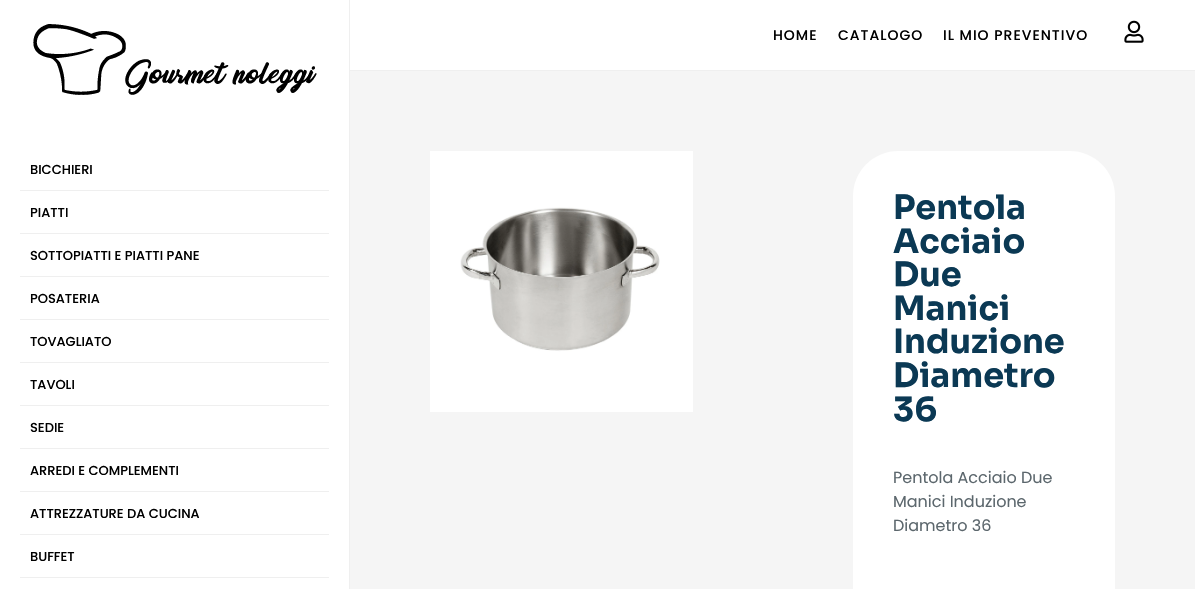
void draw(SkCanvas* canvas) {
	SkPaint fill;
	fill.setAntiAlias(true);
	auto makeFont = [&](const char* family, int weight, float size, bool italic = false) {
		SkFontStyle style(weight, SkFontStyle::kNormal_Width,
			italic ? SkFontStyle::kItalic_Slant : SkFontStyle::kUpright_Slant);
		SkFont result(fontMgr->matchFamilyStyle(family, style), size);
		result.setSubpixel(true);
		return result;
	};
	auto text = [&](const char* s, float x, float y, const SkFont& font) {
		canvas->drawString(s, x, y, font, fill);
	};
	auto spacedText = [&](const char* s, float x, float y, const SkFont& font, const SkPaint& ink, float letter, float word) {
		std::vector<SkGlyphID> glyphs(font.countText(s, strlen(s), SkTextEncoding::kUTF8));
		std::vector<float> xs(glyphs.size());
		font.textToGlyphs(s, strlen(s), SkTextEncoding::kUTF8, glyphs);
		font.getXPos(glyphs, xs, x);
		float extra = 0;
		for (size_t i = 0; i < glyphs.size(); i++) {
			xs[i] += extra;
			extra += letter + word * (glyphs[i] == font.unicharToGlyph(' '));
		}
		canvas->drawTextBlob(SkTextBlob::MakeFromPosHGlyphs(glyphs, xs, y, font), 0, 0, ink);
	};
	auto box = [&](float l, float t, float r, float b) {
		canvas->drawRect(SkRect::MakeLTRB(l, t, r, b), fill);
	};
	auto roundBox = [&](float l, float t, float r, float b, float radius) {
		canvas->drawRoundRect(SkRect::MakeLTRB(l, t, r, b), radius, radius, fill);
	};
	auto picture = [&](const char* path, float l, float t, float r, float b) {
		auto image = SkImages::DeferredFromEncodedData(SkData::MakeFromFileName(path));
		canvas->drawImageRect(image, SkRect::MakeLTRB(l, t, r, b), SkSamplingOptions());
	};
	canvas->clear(0xFFFFFFFF);
	fill.setColor(0xFFEFEFEF);
	box(350, 70, 1195, 71);
	picture("image0.png", 1124, 20, 1144, 43);
	box(349, 0, 350, 589);
	picture("image1.png", 33, 24, 317, 95);
	box(20, 190, 329, 191);
	box(20, 233, 329, 234);
	box(20, 276, 329, 277);
	box(20, 319, 329, 320);
	box(20, 362, 329, 363);
	box(20, 405, 329, 406);
	box(20, 448, 329, 449);
	box(20, 491, 329, 492);
	box(20, 534, 329, 535);
	box(20, 577, 329, 578);
	fill.setColor(0xFFF5F5F5);
	box(350, 71, 1195, 589);
	picture("image2.png", 430, 151, 693, 412);
	fill.setColor(0xFFFFFFFF);
	roundBox(853, 151, 1115, 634, 45);
	auto font1 = makeFont("Poppins", 500, 14);
	fill.setColor(0xFF000000);
	spacedText("HOME", 773, 40, font1, fill, 1, 0);
	spacedText("CATALOGO", 838, 40, font1, fill, 1, 0);
	spacedText("IL MIO PREVENTIVO", 943, 40, font1, fill, 1, 0);
	auto font2 = makeFont("Poppins", 500, 13);
	text("BICCHIERI", 30, 174, font2);
	text("PIATTI", 30, 217, font2);
	text("SOTTOPIATTI E PIATTI PANE", 30, 260, font2);
	text("POSATERIA", 30, 303, font2);
	text("TOVAGLIATO", 30, 346, font2);
	text("TAVOLI", 30, 389, font2);
	text("SEDIE", 30, 432, font2);
	text("ARREDI E COMPLEMENTI", 30, 475, font2);
	text("ATTREZZATURE DA CUCINA", 30, 518, font2);
	text("BUFFET", 30, 561, font2);
	auto font3 = makeFont("Sora", 700, 33.5f);
	fill.setColor(0xFF0B3954);
	text("Pentola", 893, 219, font3);
	text("Acciaio", 893, 253, font3);
	text("Due", 893, 286, font3);
	text("Manici", 893, 320, font3);
	text("Induzione", 893, 353, font3);
	text("Diametro", 893, 387, font3);
	text("36", 893, 421, font3);
	auto font4 = makeFont("Poppins", 400, 16);
	fill.setColor(0xFF5C676D);
	text("Pentola Acciaio Due", 893, 483, font4);
	text("Manici Induzione", 893, 507, font4);
	text("Diametro 36", 893, 531, font4);
}
